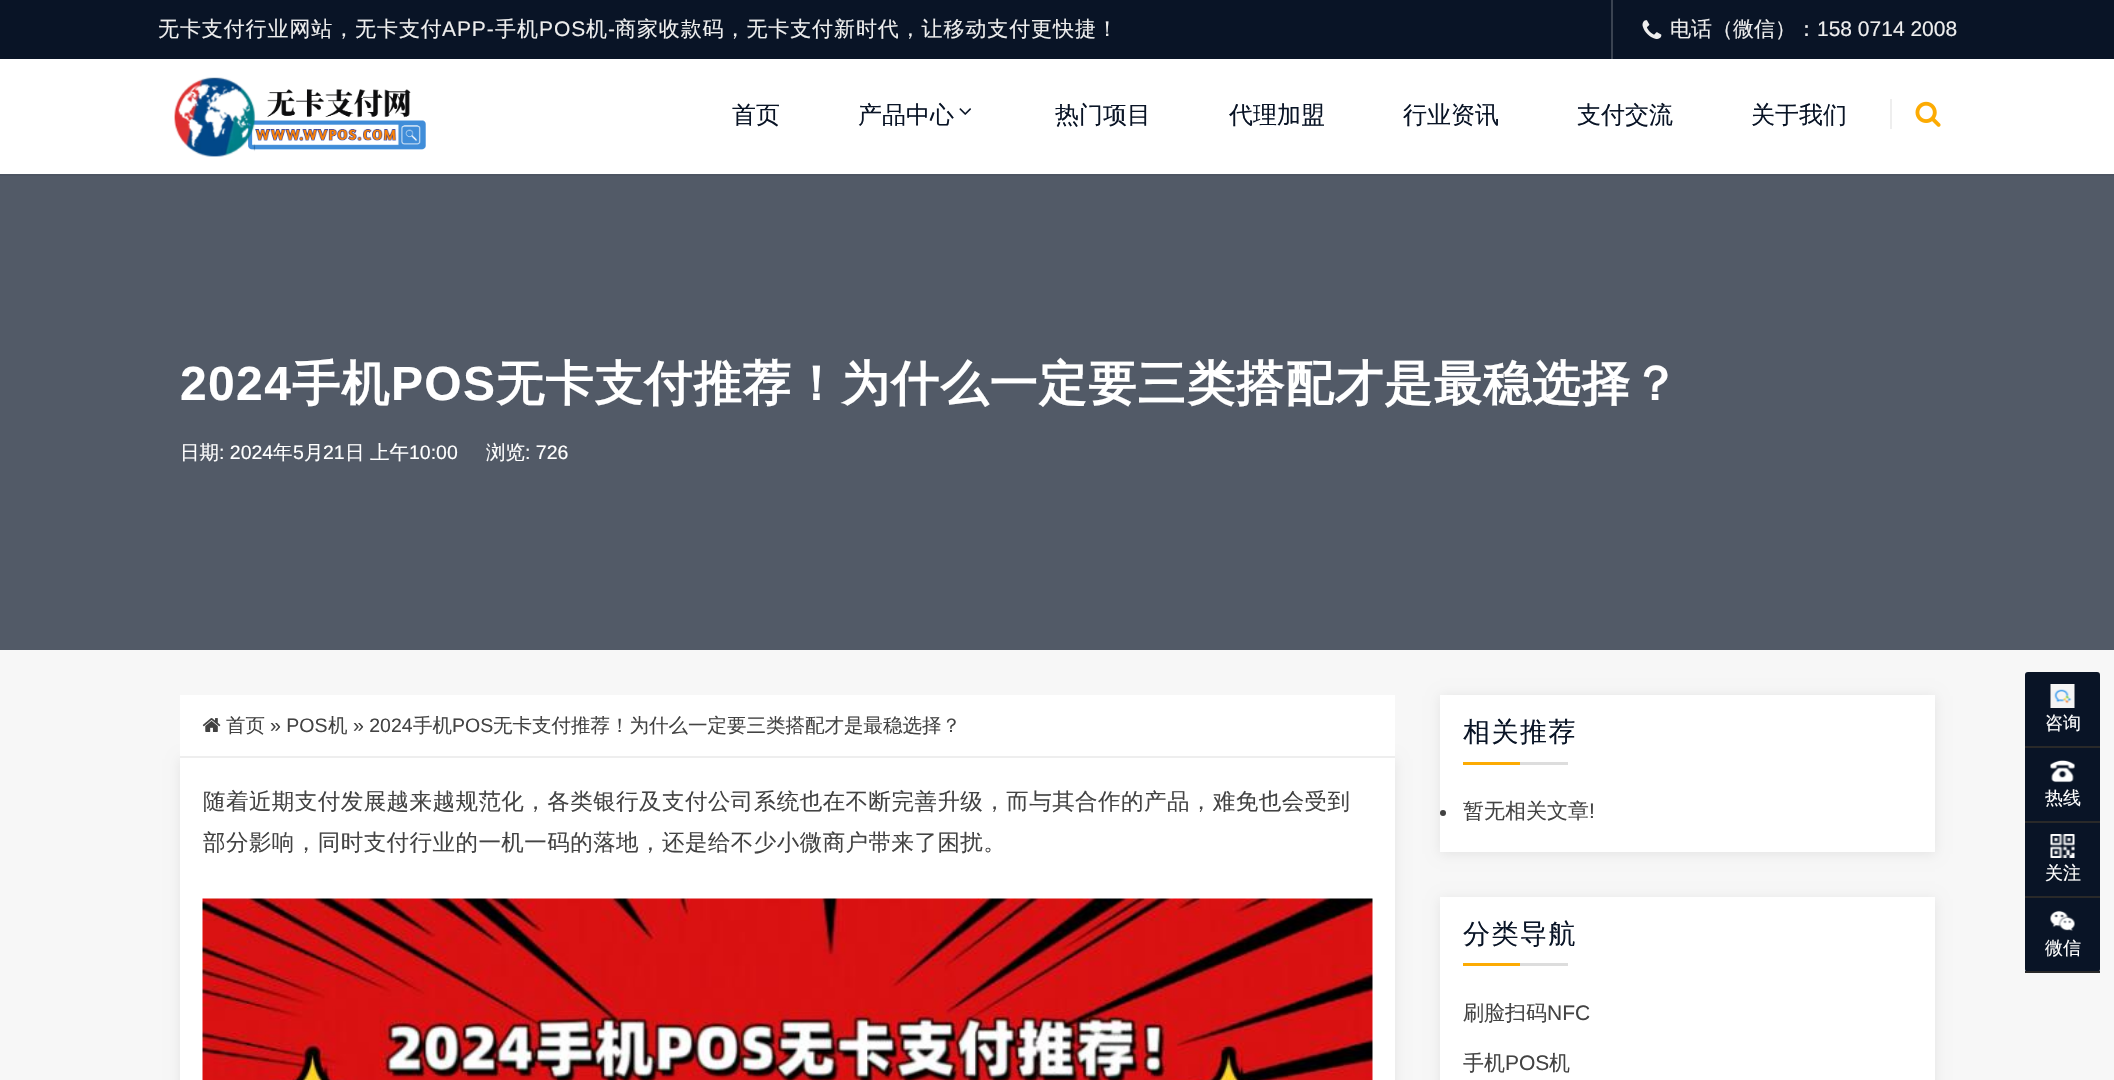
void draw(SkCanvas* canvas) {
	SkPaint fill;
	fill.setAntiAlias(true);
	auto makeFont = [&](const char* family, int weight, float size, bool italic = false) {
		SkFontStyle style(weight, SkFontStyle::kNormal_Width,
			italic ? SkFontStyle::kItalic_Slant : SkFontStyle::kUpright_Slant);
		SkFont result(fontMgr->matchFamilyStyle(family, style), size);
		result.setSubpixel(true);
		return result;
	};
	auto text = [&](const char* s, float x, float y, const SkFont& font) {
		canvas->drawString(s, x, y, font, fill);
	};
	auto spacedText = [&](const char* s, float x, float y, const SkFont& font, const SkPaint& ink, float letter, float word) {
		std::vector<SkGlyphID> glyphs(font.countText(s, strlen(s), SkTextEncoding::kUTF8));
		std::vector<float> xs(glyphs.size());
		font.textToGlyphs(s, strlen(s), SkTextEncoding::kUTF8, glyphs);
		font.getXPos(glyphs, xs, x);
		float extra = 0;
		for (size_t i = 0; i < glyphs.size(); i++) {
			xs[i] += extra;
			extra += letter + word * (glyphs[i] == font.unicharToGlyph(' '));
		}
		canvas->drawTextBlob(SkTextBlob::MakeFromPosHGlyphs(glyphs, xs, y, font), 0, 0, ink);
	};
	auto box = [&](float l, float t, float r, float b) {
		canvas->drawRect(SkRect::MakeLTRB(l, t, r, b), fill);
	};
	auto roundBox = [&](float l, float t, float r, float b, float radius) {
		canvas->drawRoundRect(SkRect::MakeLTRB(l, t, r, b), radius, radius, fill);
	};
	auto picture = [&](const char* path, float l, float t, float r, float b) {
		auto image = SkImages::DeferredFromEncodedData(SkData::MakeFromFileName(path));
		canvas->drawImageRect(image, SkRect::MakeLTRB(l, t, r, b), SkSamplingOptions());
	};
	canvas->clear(0xFFFFFFFF);
	fill.setStyle(SkPaint::kStroke_Style);
	fill.setStrokeWidth(2);
	fill.setColor(0xFFEDEDED);
	canvas->drawRect(SkRect::MakeLTRB(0, 58, 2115, 175), fill);
	fill.setStyle(SkPaint::kFill_Style);
	fill.setColor(0xFF091426);
	box(0, 0, 2114, 59);
	fill.setColor(0xFF3A4351);
	box(1611, 0, 1613, 59);
	picture("image0.png", 1642, 20, 1662, 39);
	fill.setColor(0xFFFFFFFF);
	box(0, 59, 1, 174);
	picture("image1.png", 174, 77, 426, 157);
	picture("image2.png", 959, 108, 971, 115);
	fill.setColor(0xFFEEEEEE);
	box(1890, 99, 1892, 129);
	picture("image3.png", 1915, 101, 1941, 127);
	fill.setColor(0xB3091426);
	box(0, 174, 2114, 650);
	fill.setColor(0xFFF7F7F7);
	box(0, 650, 2114, 1080);
	fill.setColor(0x14000000);
	fill.setMaskFilter(SkMaskFilter::MakeBlur(kNormal_SkBlurStyle, 6));
	canvas->drawRect(SkRect::MakeLTRB(180, 759, 1395, 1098), fill);
	fill.setMaskFilter(nullptr);
	fill.setColor(0xFFFFFFFF);
	box(180, 695, 1395, 756);
	fill.setColor(0xFFEEEEEE);
	box(180, 756, 1395, 758);
	picture("image4.png", 202, 718, 221, 732);
	fill.setColor(0xFFFFFFFF);
	box(180, 758, 1395, 1080);
	picture("image5.png", 202, 898, 1373, 1080);
	fill.setColor(0x14000000);
	fill.setMaskFilter(SkMaskFilter::MakeBlur(kNormal_SkBlurStyle, 6));
	canvas->drawRect(SkRect::MakeLTRB(1440, 696, 1935, 854), fill);
	fill.setMaskFilter(nullptr);
	fill.setColor(0xFFFFFFFF);
	box(1440, 695, 1935, 852);
	fill.setColor(0xFFFCAB03);
	box(1463, 762, 1520, 765);
	fill.setColor(0xFFDDDDDD);
	box(1520, 762, 1568, 765);
	fill.setColor(0xFF414141);
	canvas->drawCircle(1443, 813, 3, fill);
	fill.setColor(0x14000000);
	fill.setMaskFilter(SkMaskFilter::MakeBlur(kNormal_SkBlurStyle, 6));
	canvas->drawRect(SkRect::MakeLTRB(1440, 899, 1935, 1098), fill);
	fill.setMaskFilter(nullptr);
	fill.setColor(0xFFFFFFFF);
	box(1440, 897, 1935, 1080);
	fill.setColor(0xFFFCAB03);
	box(1463, 963, 1520, 966);
	fill.setColor(0xFFDDDDDD);
	box(1520, 963, 1568, 966);
	fill.setColor(0xFF091426);
	roundBox(2025, 672, 2100, 972, 3);
	fill.setColor(0xFF292929);
	box(2025, 746, 2100, 748);
	picture("image6.png", 2050, 684, 2075, 708);
	box(2025, 821, 2100, 823);
	picture("image7.png", 2050, 760, 2075, 783);
	box(2025, 896, 2100, 898);
	picture("image8.png", 2050, 834, 2075, 858);
	box(2025, 971, 2100, 973);
	picture("image9.png", 2050, 910, 2075, 931);
	auto font1 = makeFont("WenQuanYi Zen Hei", 500, 21);
	fill.setColor(0xFFEEEEEE);
	spacedText("无卡支付行业网站，无卡支付", 158, 36, font1, fill, 0.9f, 0);
	auto font2 = makeFont("Liberation Sans", 400, 21);
	spacedText("APP-", 442, 36, font2, fill, 0.9f, 0);
	spacedText("手机", 495, 36, font1, fill, 0.9f, 0);
	spacedText("POS", 539, 36, font2, fill, 0.9f, 0);
	spacedText("机", 586, 36, font1, fill, 0.9f, 0);
	spacedText("-", 608, 36, font2, fill, 0.9f, 0);
	spacedText("商家收款码，无卡支付新时代，让移动支付更快捷！", 615, 36, font1, fill, 0.9f, 0);
	text("电话（微信）：", 1670, 36, font1);
	text("158 0714 2008", 1817, 36, font2);
	auto font3 = makeFont("WenQuanYi Zen Hei", 500, 24);
	fill.setColor(0xFF091426);
	text("首页", 732, 123, font3);
	text("产品中心", 858, 123, font3);
	text("热门项目", 1055, 123, font3);
	text("代理加盟", 1229, 123, font3);
	text("行业资讯", 1403, 123, font3);
	text("支付交流", 1577, 123, font3);
	text("关于我们", 1751, 123, font3);
	auto font4 = makeFont("Liberation Sans", 700, 48);
	fill.setColor(0xFFFFFFFF);
	spacedText("2024", 180, 400, font4, fill, 1.35f, 0);
	auto font5 = makeFont("WenQuanYi Zen Hei", 700, 48);
	spacedText("手机", 292, 400, font5, fill, 1.35f, 0);
	spacedText("POS", 391, 400, font4, fill, 1.35f, 0);
	spacedText("无卡支付推荐！为什么一定要三类搭配才是最稳选择？", 496, 400, font5, fill, 1.35f, 0);
	auto font6 = makeFont("WenQuanYi Zen Hei", 500, 19.5f);
	text("日期", 180, 459, font6);
	auto font7 = makeFont("Liberation Sans", 400, 19.5f);
	text(": 2024", 219, 459, font7);
	text("年", 273, 459, font6);
	text("5", 293, 459, font7);
	text("月", 304, 459, font6);
	text("21", 323, 459, font7);
	text("日", 345, 459, font6);
	text("上午", 370, 459, font6);
	text("10:00", 409, 459, font7);
	text("浏览", 486, 459, font6);
	text(": 726", 525, 459, font7);
	fill.setColor(0xFF434343);
	text("首页", 226, 732, font6);
	text("» POS", 270, 732, font7);
	text("机", 328, 732, font6);
	text("» 2024", 353, 732, font7);
	text("手机", 413, 732, font6);
	text("POS", 452, 732, font7);
	text("无卡支付推荐！为什么一定要三类搭配才是最稳选择？", 493, 732, font6);
	auto font8 = makeFont("WenQuanYi Zen Hei", 500, 22.5f);
	spacedText("随着近期支付发展越来越规范化，各类银行及支付公司系统也在不断完善升级，而与其合作的产品，难免也会受到", 203, 809, font8, fill, 0.45f, 0);
	spacedText("部分影响，同时支付行业的一机一码的落地，还是给不少小微商户带来了困扰。", 203, 850, font8, fill, 0.45f, 0);
	auto font9 = makeFont("WenQuanYi Zen Hei", 500, 27);
	fill.setColor(0xFF091426);
	spacedText("相关推荐", 1463, 741, font9, fill, 1.5f, 0);
	fill.setColor(0xFF434343);
	text("暂无相关文章", 1463, 818, font1);
	text("!", 1589, 818, font2);
	fill.setColor(0xFF091426);
	spacedText("分类导航", 1463, 943, font9, fill, 1.5f, 0);
	fill.setColor(0xFF434343);
	text("刷脸扫码", 1463, 1020, font1);
	text("NFC", 1547, 1020, font2);
	text("手机", 1463, 1070, font1);
	text("POS", 1505, 1070, font2);
	text("机", 1549, 1070, font1);
	auto font10 = makeFont("WenQuanYi Zen Hei", 500, 18);
	fill.setColor(0xFFFFFFFF);
	text("咨询", 2045, 729, font10);
	text("热线", 2045, 804, font10);
	text("关注", 2045, 879, font10);
	text("微信", 2045, 954, font10);
}
